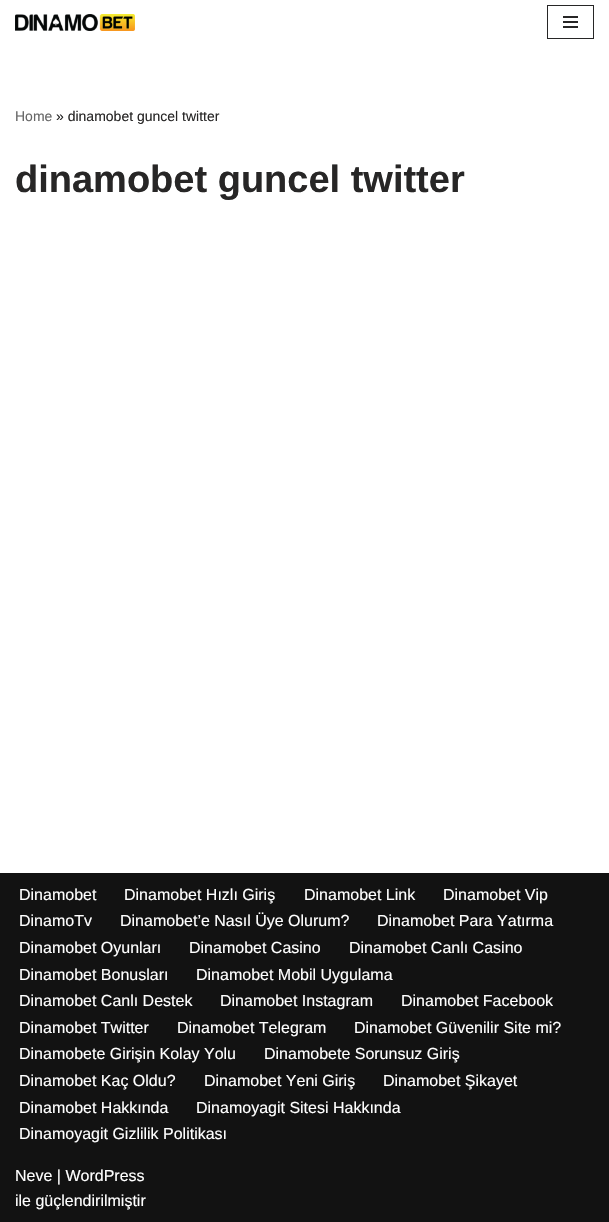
void draw(SkCanvas* canvas) {
	SkPaint fill;
	fill.setAntiAlias(true);
	auto makeFont = [&](const char* family, int weight, float size, bool italic = false) {
		SkFontStyle style(weight, SkFontStyle::kNormal_Width,
			italic ? SkFontStyle::kItalic_Slant : SkFontStyle::kUpright_Slant);
		SkFont result(fontMgr->matchFamilyStyle(family, style), size);
		result.setSubpixel(true);
		return result;
	};
	auto text = [&](const char* s, float x, float y, const SkFont& font) {
		canvas->drawString(s, x, y, font, fill);
	};
	auto box = [&](float l, float t, float r, float b) {
		canvas->drawRect(SkRect::MakeLTRB(l, t, r, b), fill);
	};
	auto picture = [&](const char* path, float l, float t, float r, float b) {
		auto image = SkImages::DeferredFromEncodedData(SkData::MakeFromFileName(path));
		canvas->drawImageRect(image, SkRect::MakeLTRB(l, t, r, b), SkSamplingOptions());
	};
	canvas->clear(0xFFFFFFFF);
	picture("image0.png", 15, 14, 135, 31);
	fill.setStyle(SkPaint::kStroke_Style);
	fill.setStrokeWidth(1);
	fill.setColor(0xFF272626);
	canvas->drawRect(SkRect::MakeLTRB(547.5f, 5.5f, 593.5f, 38.5f), fill);
	fill.setStyle(SkPaint::kFill_Style);
	box(563, 16, 578, 18);
	box(563, 21, 578, 23);
	box(563, 26, 578, 28);
	fill.setColor(0xFF121212);
	box(0, 873, 609, 1222);
	auto font1 = makeFont("Liberation Sans", 400, 14);
	fill.setColor(0xFF676767);
	text("Home", 15, 121, font1);
	fill.setColor(0xFF272626);
	text("» dinamobet guncel twitter", 56, 121, font1);
	auto font2 = makeFont("Liberation Sans", 700, 38);
	text("dinamobet guncel twitter", 15, 192, font2);
	auto font3 = makeFont("Liberation Sans", 400, 16);
	fill.setColor(0xFFFFFFFF);
	text("Dinamobet", 19, 900, font3);
	text("Dinamobet Hızlı Giriş", 124, 900, font3);
	text("Dinamobet Link", 304, 900, font3);
	text("Dinamobet Vip", 443, 900, font3);
	text("DinamoTv", 19, 926, font3);
	text("Dinamobet’e Nasıl Üye Olurum?", 120, 926, font3);
	text("Dinamobet Para Yatırma", 377, 926, font3);
	text("Dinamobet Oyunları", 19, 953, font3);
	text("Dinamobet Casino", 189, 953, font3);
	text("Dinamobet Canlı Casino", 349, 953, font3);
	text("Dinamobet Bonusları", 19, 980, font3);
	text("Dinamobet Mobil Uygulama", 196, 980, font3);
	text("Dinamobet Canlı Destek", 19, 1006, font3);
	text("Dinamobet Instagram", 220, 1006, font3);
	text("Dinamobet Facebook", 401, 1006, font3);
	text("Dinamobet Twitter", 19, 1033, font3);
	text("Dinamobet Telegram", 177, 1033, font3);
	text("Dinamobet Güvenilir Site mi?", 354, 1033, font3);
	text("Dinamobete Girişin Kolay Yolu", 19, 1059, font3);
	text("Dinamobete Sorunsuz Giriş", 264, 1059, font3);
	text("Dinamobet Kaç Oldu?", 19, 1086, font3);
	text("Dinamobet Yeni Giriş", 204, 1086, font3);
	text("Dinamobet Şikayet", 383, 1086, font3);
	text("Dinamobet Hakkında", 19, 1113, font3);
	text("Dinamoyagit Sitesi Hakkında", 196, 1113, font3);
	text("Dinamoyagit Gizlilik Politikası", 19, 1139, font3);
	text("Neve | WordPress", 15, 1181, font3);
	text("ile güçlendirilmiştir", 15, 1206, font3);
}
